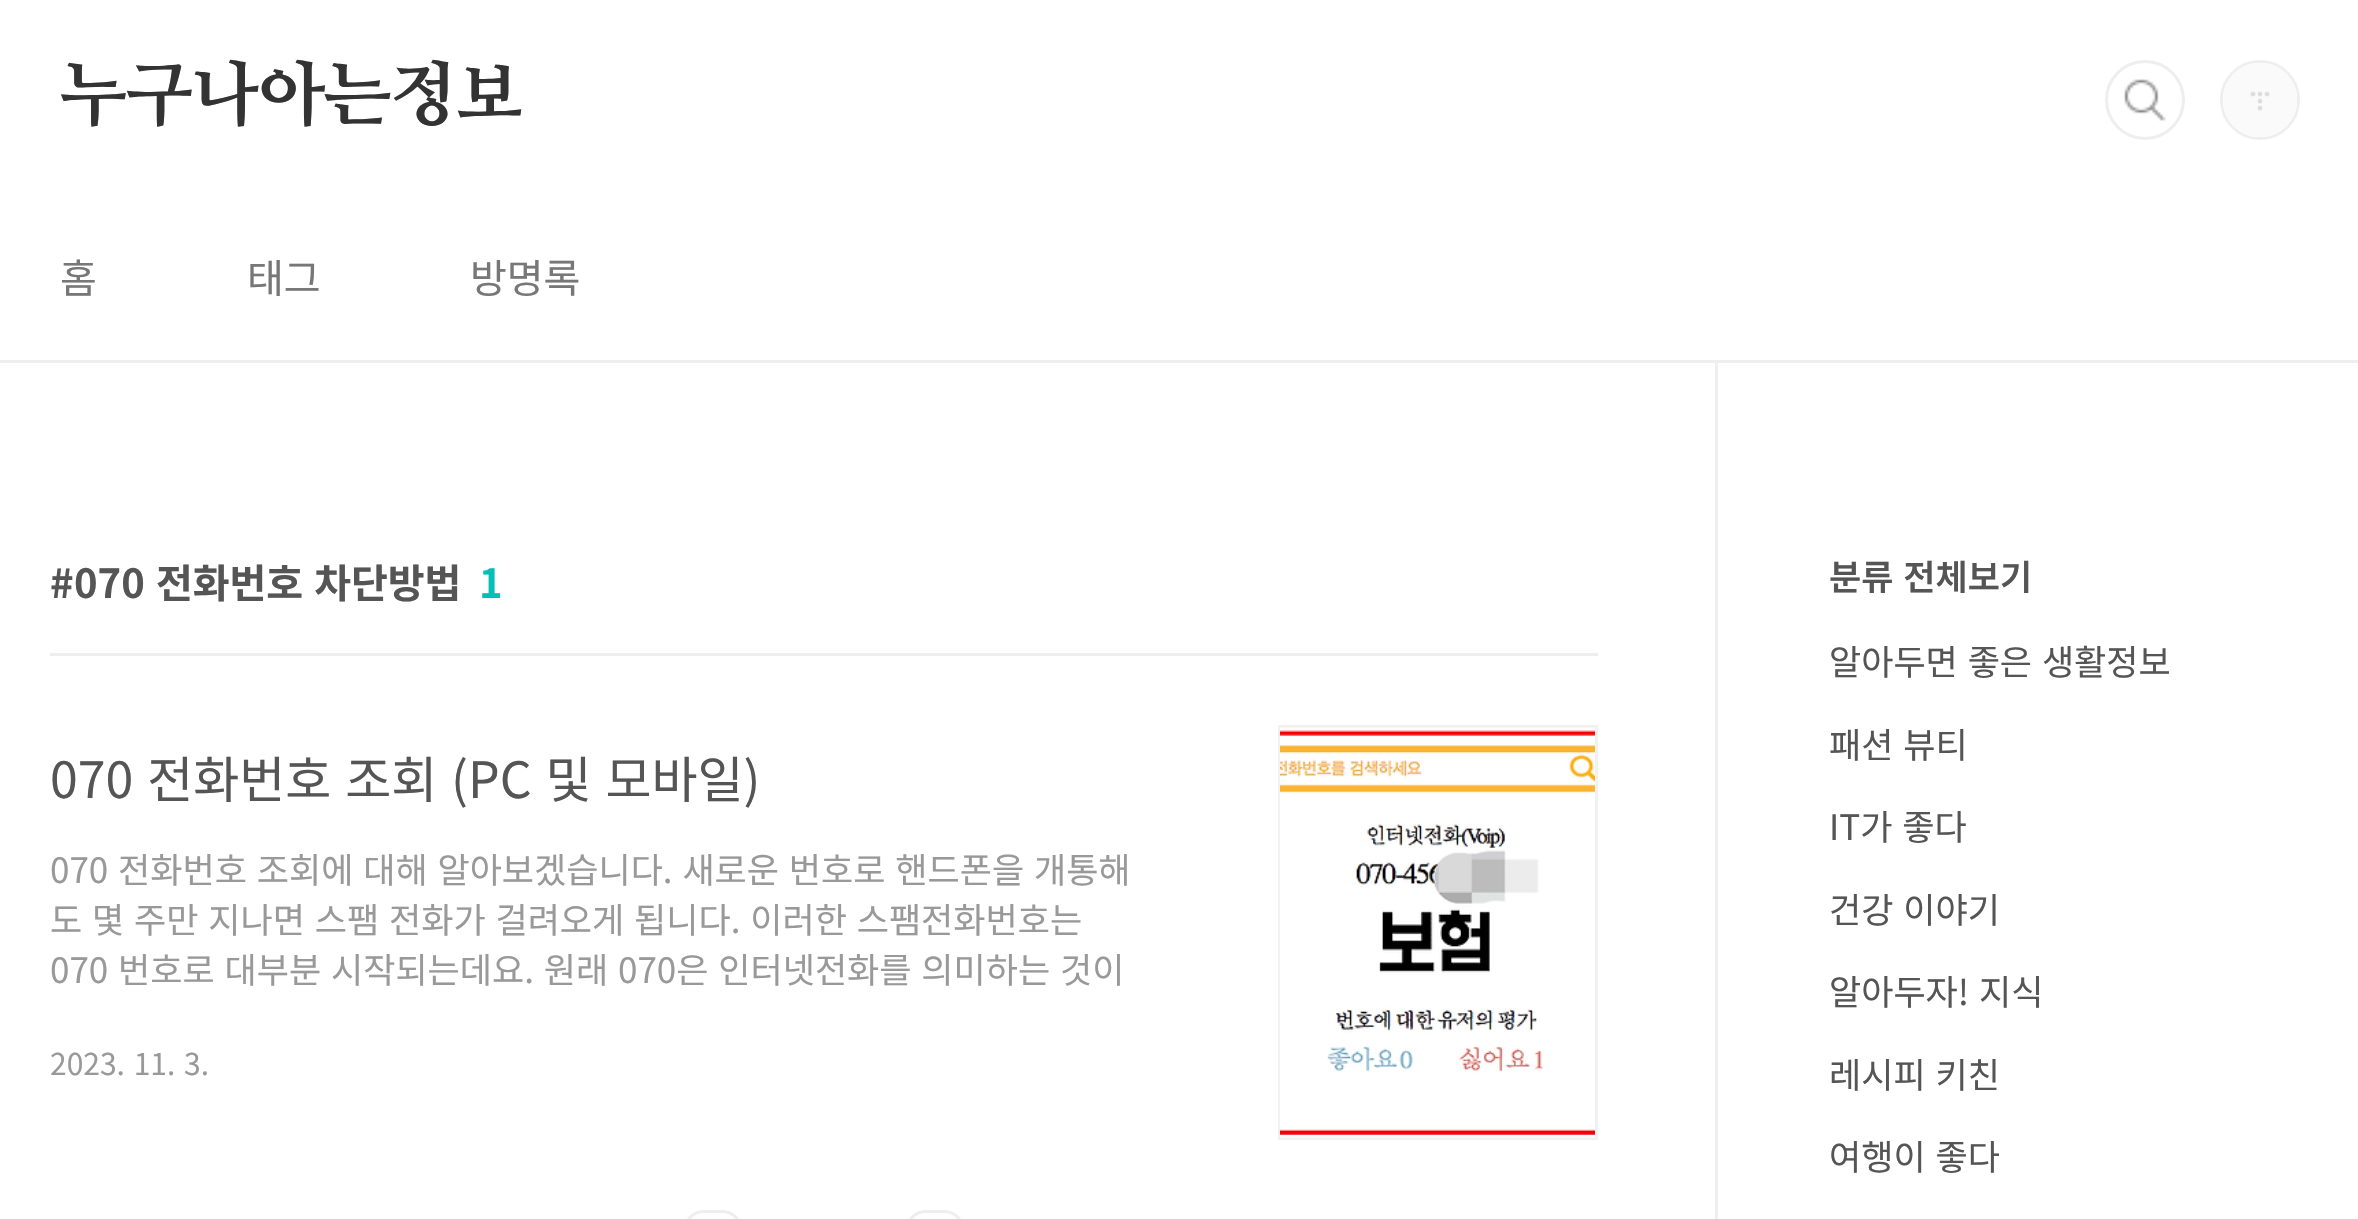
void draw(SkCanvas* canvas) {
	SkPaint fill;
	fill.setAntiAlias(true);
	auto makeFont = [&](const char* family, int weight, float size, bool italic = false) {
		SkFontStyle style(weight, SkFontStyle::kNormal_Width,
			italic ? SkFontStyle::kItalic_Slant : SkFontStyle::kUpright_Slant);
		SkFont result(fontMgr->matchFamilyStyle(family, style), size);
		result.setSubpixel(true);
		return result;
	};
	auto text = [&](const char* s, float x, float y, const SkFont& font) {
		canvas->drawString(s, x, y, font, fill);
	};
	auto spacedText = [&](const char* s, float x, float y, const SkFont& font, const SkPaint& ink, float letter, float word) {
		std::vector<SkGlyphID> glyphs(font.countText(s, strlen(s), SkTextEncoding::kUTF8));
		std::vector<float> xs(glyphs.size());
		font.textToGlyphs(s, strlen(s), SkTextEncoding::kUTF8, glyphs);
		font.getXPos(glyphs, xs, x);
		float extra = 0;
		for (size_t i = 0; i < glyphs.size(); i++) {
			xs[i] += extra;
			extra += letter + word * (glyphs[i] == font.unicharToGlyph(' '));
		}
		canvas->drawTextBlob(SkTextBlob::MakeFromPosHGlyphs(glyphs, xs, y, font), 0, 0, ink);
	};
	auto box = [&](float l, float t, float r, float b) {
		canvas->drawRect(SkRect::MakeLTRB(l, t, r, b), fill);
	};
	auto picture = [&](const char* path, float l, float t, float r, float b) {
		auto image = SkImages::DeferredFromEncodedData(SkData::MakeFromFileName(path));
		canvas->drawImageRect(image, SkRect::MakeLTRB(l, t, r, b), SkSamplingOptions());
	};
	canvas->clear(0xFFFFFFFF);
	fill.setColor(0xFFEEEEEE);
	box(0, 360, 2358, 363);
	picture("image0.png", 2124, 79, 2166, 121);
	fill.setStyle(SkPaint::kStroke_Style);
	fill.setStrokeWidth(3);
	canvas->drawCircle(2145, 100, 38.5f, fill);
	canvas->drawCircle(2260, 100, 38.5f, fill);
	picture("image1.png", 2223, 63, 2297, 137);
	fill.setStyle(SkPaint::kFill_Style);
	box(50, 653, 1598, 656);
	fill.setStyle(SkPaint::kStroke_Style);
	fill.setColor(0xFFF1F1F1);
	canvas->drawRect(SkRect::MakeLTRB(1279.5f, 726.5f, 1596.5f, 1138.5f), fill);
	picture("image2.png", 1280, 727, 1595, 1138);
	fill.setColor(0xFFEEEEEE);
	canvas->drawRoundRect(SkRect::MakeLTRB(684.5f, 1211.5f, 741.5f, 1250.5f), 28.5f, 28.5f, fill);
	canvas->drawRoundRect(SkRect::MakeLTRB(906.5f, 1211.5f, 963.5f, 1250.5f), 28.5f, 28.5f, fill);
	fill.setStyle(SkPaint::kFill_Style);
	box(1715, 363, 1718, 1219);
	auto font1 = makeFont("NanumMyeongjo", 800, 70);
	fill.setColor(0xFF333333);
	spacedText("누구나아는정보", 60, 118, font1, fill, -0.5f, 0);
	auto font2 = makeFont("Noto Sans KR", 400, 40);
	fill.setColor(0xFF777777);
	text("홈", 60, 293, font2);
	text("태그", 247, 293, font2);
	text("방명록", 470, 293, font2);
	auto font3 = makeFont("Noto Sans KR", 700, 40);
	fill.setColor(0xFF555555);
	text("#", 50, 598, font3);
	spacedText("070 전화번호 차단방법", 74, 598, font3, fill, 0, 2);
	fill.setColor(0xFF04BEB8);
	text("1", 479, 598, font3);
	auto font4 = makeFont("Noto Sans KR", 400, 50);
	fill.setColor(0xFF555555);
	spacedText("070 전화번호 조회 (PC 및 모바일)", 50, 798, font4, fill, 0, 2.75f);
	auto font5 = makeFont("Noto Sans KR", 400, 35);
	fill.setColor(0xFF999999);
	spacedText("070 전화번호 조회에 대해 알아보겠습니다. 새로운 번호로 핸드폰을 개통해", 50, 883, font5, fill, 0, 2);
	spacedText("도 몇 주만 지나면 스팸 전화가 걸려오게 됩니다. 이러한 스팸전화번호는", 50, 933, font5, fill, 0, 2);
	spacedText("070 번호로 대부분 시작되는데요. 원래 070은 인터넷전화를 의미하는 것이", 50, 983, font5, fill, 0, 2);
	auto font6 = makeFont("Noto Sans KR", 400, 30);
	spacedText("2023. 11. 3.", 50, 1075, font6, fill, 0, 2);
	auto font7 = makeFont("Noto Sans KR", 600, 35);
	fill.setColor(0xFF555555);
	spacedText("분류 전체보기", 1829, 590, font7, fill, 0, 2);
	spacedText("알아두면 좋은 생활정보", 1829, 675, font5, fill, 0, 2);
	spacedText("패션 뷰티", 1829, 758, font5, fill, 0, 2);
	spacedText("IT가 좋다", 1829, 840, font5, fill, 0, 2);
	spacedText("건강 이야기", 1829, 923, font5, fill, 0, 2);
	spacedText("알아두자! 지식", 1829, 1005, font5, fill, 0, 2);
	spacedText("레시피 키친", 1829, 1088, font5, fill, 0, 2);
	spacedText("여행이 좋다", 1829, 1170, font5, fill, 0, 2);
}
